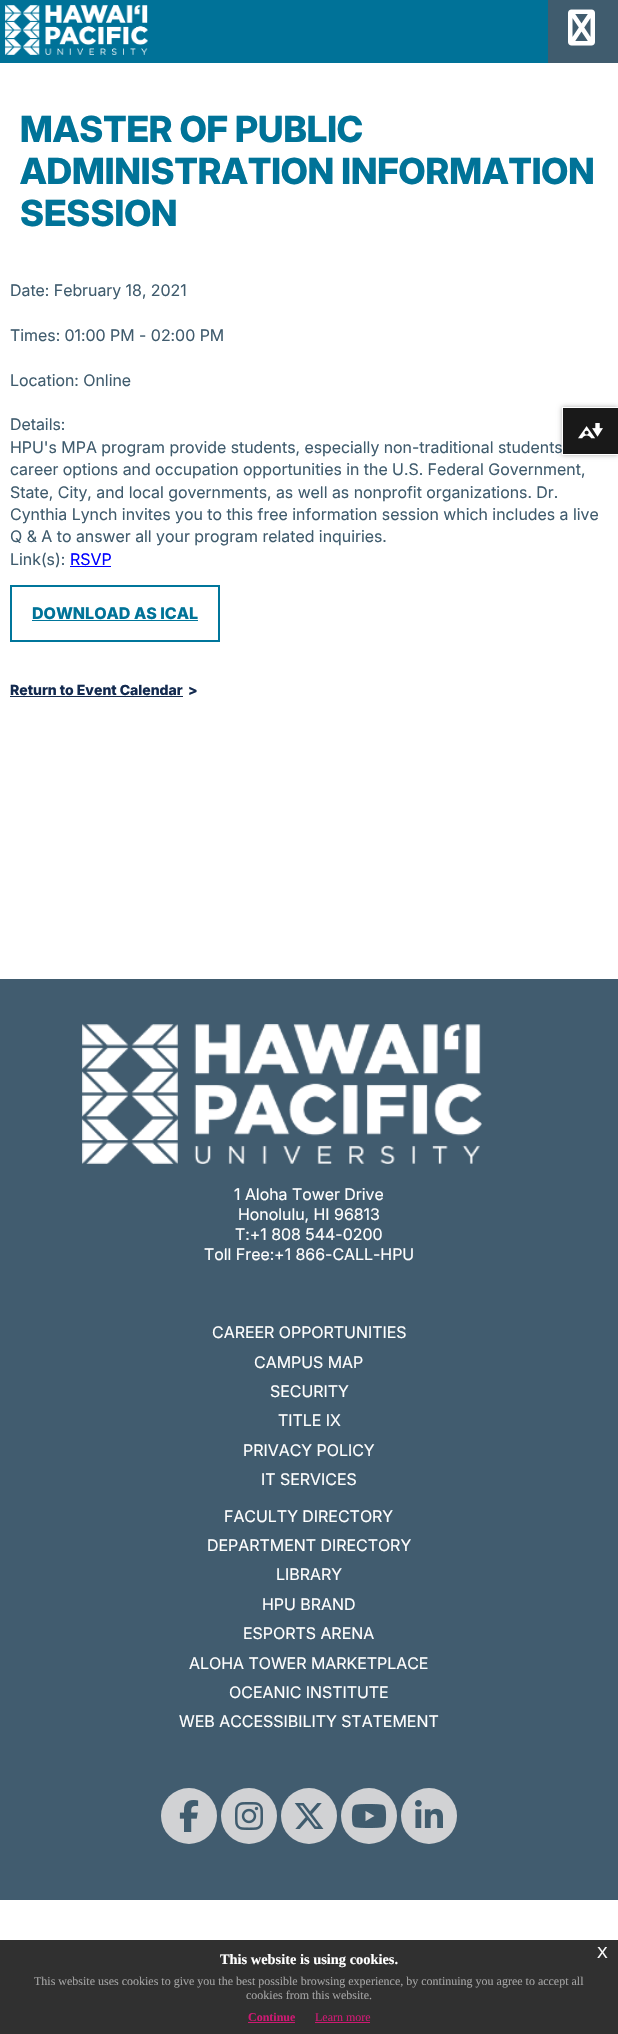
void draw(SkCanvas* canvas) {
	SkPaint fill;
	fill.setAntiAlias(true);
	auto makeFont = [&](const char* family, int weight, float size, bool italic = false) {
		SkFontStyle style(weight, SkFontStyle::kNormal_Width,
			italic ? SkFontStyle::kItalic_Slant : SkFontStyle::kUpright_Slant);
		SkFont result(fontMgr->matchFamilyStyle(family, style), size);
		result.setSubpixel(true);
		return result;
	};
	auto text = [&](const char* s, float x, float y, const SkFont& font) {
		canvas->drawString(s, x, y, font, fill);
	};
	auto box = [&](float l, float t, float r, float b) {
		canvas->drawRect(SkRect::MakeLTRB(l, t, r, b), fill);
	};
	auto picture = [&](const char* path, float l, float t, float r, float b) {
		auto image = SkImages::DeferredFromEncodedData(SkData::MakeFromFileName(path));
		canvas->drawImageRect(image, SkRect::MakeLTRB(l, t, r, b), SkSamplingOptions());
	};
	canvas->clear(0xFFFFFFFF);
	fill.setColor(0xFF007298);
	box(0, 0, 548, 63);
	picture("image0.png", 5, 5, 148, 55);
	fill.setColor(0xFF405C6E);
	box(548, 0, 618, 63);
	picture("image1.png", 568, 9, 595, 46);
	fill.setColor(0xFF0000FF);
	box(70, 566, 111, 567);
	fill.setStyle(SkPaint::kStroke_Style);
	fill.setStrokeWidth(2);
	fill.setColor(0xFF00769B);
	canvas->drawRect(SkRect::MakeLTRB(11, 586, 219, 641), fill);
	fill.setStyle(SkPaint::kFill_Style);
	box(32, 620, 198, 621);
	fill.setColor(0xFF132A4F);
	box(10, 696, 183, 697);
	fill.setColor(0xFF415C6F);
	box(0, 979, 618, 1900);
	picture("image2.png", 82, 1024, 482, 1164);
	fill.setColor(0xFFD1D2D4);
	canvas->drawCircle(189, 1816, 28, fill);
	picture("image3.png", 179, 1800, 199, 1832);
	canvas->drawCircle(249, 1816, 28, fill);
	picture("image4.png", 235, 1802, 263, 1830);
	canvas->drawCircle(309, 1816, 28, fill);
	picture("image5.png", 294, 1803, 324, 1829);
	canvas->drawCircle(369, 1816, 28, fill);
	picture("image6.png", 351, 1804, 387, 1828);
	canvas->drawCircle(429, 1816, 28, fill);
	picture("image7.png", 415, 1800, 443, 1828);
	canvas->save();
	canvas->clipPath(SkPathBuilder(SkPathFillType::kEvenOdd).moveTo(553, 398).lineTo(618, 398).lineTo(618, 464).lineTo(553, 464).close().moveTo(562, 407).lineTo(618, 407).lineTo(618, 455).lineTo(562, 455).close().detach(), true);
	fill.setColor(0x4D000000);
	fill.setMaskFilter(SkMaskFilter::MakeBlur(kNormal_SkBlurStyle, 2.5f));
	canvas->drawRect(SkRect::MakeLTRB(562, 407, 618, 455), fill);
	fill.setMaskFilter(nullptr);
	canvas->restore();
	fill.setColor(0xE6000000);
	box(563, 408, 618, 454);
	picture("image8.png", 578, 423, 603, 439);
	fill.setColor(0xFF303030);
	box(0, 1940, 618, 2034);
	fill.setColor(0xFFCD1972);
	box(248, 2022, 295, 2023);
	box(315, 2022, 370, 2023);
	auto font1 = makeFont("Inter", 800, 36);
	fill.setColor(0xFF007398);
	text("MASTER OF PUBLIC", 20, 142, font1);
	text("ADMINISTRATION INFORMATION", 20, 184, font1);
	text("SESSION", 20, 226, font1);
	auto font2 = makeFont("Inter", 400, 16);
	fill.setColor(0xFF405C6E);
	text("Date: February 18, 2021", 10, 296, font2);
	text("Times: 01:00 PM - 02:00 PM", 10, 341, font2);
	text("Location: Online", 10, 386, font2);
	text("Details:", 10, 430, font2);
	text("HPU's MPA program provide students, especially non-traditional students", 10, 453, font2);
	text("career options and occupation opportunities in the U.S. Federal Government,", 10, 475, font2);
	text("State, City, and local governments, as well as nonprofit organizations. Dr.", 10, 498, font2);
	text("Cynthia Lynch invites you to this free information session which includes a live", 10, 520, font2);
	text("Q & A to answer all your program related inquiries.", 10, 542, font2);
	text("Link(s):", 10, 565, font2);
	fill.setColor(0xFF0000FF);
	text("RSVP", 70, 565, font2);
	auto font3 = makeFont("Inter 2", 800, 16);
	fill.setColor(0xFF007398);
	text("DOWNLOAD AS ICAL", 32, 619, font3);
	auto font4 = makeFont("Inter 2", 800, 14);
	fill.setColor(0xFF132A4F);
	text("Return to Event Calendar", 10, 695, font4);
	text(">", 188, 695, font4);
	fill.setColor(0xFFFFFFFF);
	text("1 Aloha Tower Drive", 234, 1200, font2);
	text("Honolulu, HI 96813", 238, 1220, font2);
	text("T:+1 808 544-0200", 235, 1240, font2);
	text("Toll Free:+1 866-CALL-HPU", 204, 1260, font2);
	text("CAREER OPPORTUNITIES", 212, 1338, font2);
	text("CAMPUS MAP", 254, 1368, font2);
	text("SECURITY", 270, 1397, font2);
	text("TITLE IX", 278, 1426, font2);
	text("PRIVACY POLICY", 243, 1456, font2);
	text("IT SERVICES", 261, 1485, font2);
	text("FACULTY DIRECTORY", 224, 1522, font2);
	text("DEPARTMENT DIRECTORY", 207, 1551, font2);
	text("LIBRARY", 276, 1580, font2);
	text("HPU BRAND", 262, 1610, font2);
	text("ESPORTS ARENA", 243, 1639, font2);
	text("ALOHA TOWER MARKETPLACE", 189, 1669, font2);
	text("OCEANIC INSTITUTE", 229, 1698, font2);
	text("WEB ACCESSIBILITY STATEMENT", 179, 1727, font2);
	auto font5 = makeFont("Liberation Sans", 400, 16);
	text("X", 597, 1958, font5);
	auto font6 = makeFont("Liberation Serif", 700, 14.4f);
	text("This website is using cookies.", 220, 1964, font6);
	auto font7 = makeFont("Liberation Serif", 400, 12);
	fill.setColor(0xFFA2A2A2);
	text("This website uses cookies to give you the best possible browsing experience, by continuing you agree to accept all", 34, 1985, font7);
	text("cookies from this website.", 246, 1999, font7);
	auto font8 = makeFont("Liberation Serif", 700, 12);
	fill.setColor(0xFFCD1972);
	text("Continue", 248, 2021, font8);
	text("Learn more", 315, 2021, font7);
}
